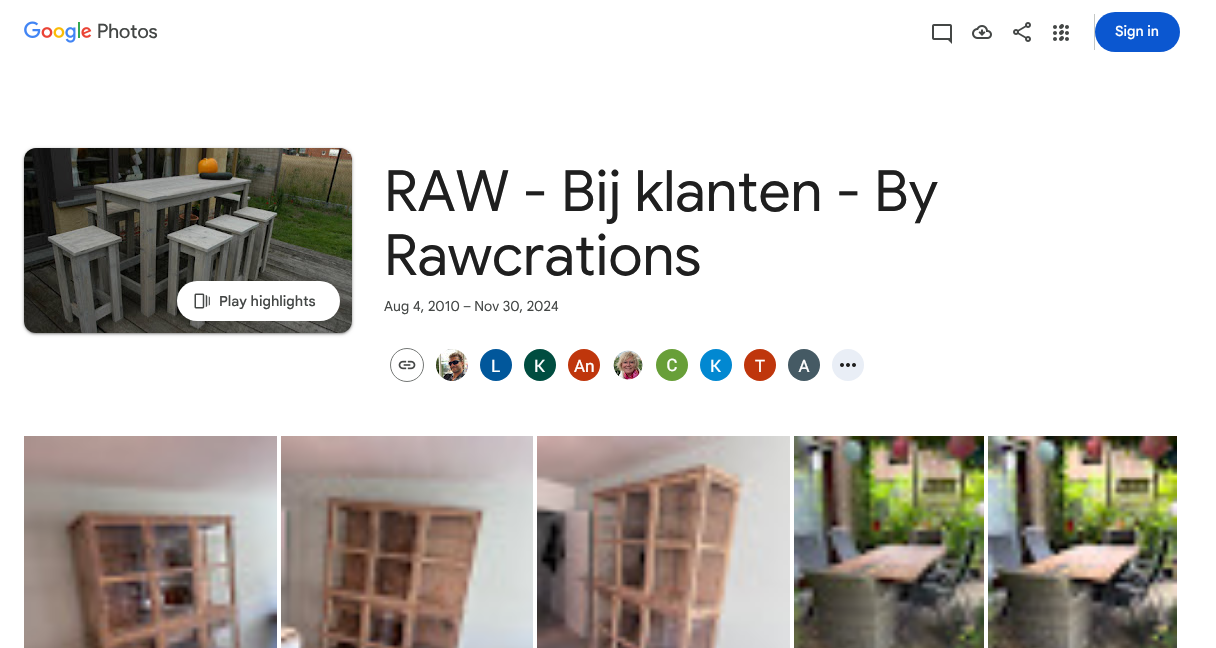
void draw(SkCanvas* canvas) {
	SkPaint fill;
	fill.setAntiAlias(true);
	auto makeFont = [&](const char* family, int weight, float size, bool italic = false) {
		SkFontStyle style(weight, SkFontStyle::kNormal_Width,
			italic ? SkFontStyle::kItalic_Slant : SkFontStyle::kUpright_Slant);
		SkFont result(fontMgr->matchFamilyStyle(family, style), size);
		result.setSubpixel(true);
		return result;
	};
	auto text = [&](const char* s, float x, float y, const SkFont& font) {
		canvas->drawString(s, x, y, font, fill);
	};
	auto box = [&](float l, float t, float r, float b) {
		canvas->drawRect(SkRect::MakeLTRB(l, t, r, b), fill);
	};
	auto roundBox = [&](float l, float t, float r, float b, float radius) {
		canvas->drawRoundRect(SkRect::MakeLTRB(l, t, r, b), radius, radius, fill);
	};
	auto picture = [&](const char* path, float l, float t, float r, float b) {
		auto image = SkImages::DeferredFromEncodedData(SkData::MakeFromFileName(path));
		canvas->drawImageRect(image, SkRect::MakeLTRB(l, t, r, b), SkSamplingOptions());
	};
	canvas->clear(0xFFFFFFFF);
	picture("image0.png", 24, 21, 92, 43);
	picture("image1.png", 932, 24, 952, 44);
	picture("image2.png", 972, 25, 992, 39);
	picture("image3.png", 1013, 22, 1031, 42);
	picture("image4.png", 1060, 24, 1064, 40);
	fill.setColor(0xFFC4C7C5);
	box(1094, 14, 1095, 50);
	fill.setColor(0x26000000);
	fill.setMaskFilter(SkMaskFilter::MakeBlur(kNormal_SkBlurStyle, 1.5f));
	canvas->drawRoundRect(SkRect::MakeLTRB(23, 148, 353, 335), 13, 13, fill);
	fill.setMaskFilter(nullptr);
	fill.setColor(0x4D000000);
	fill.setMaskFilter(SkMaskFilter::MakeBlur(kNormal_SkBlurStyle, 1));
	canvas->drawRoundRect(SkRect::MakeLTRB(24, 149, 352, 334), 12, 12, fill);
	fill.setMaskFilter(nullptr);
	picture("image5.png", 24, 148, 352, 333);
	fill.setColor(0xFFFFFFFF);
	roundBox(177, 281, 340, 321, 20);
	picture("image6.png", 194, 293, 210, 309);
	fill.setStyle(SkPaint::kStroke_Style);
	fill.setStrokeWidth(1);
	fill.setColor(0xFF747775);
	canvas->drawCircle(407, 365, 16.5f, fill);
	picture("image7.png", 398, 360, 416, 370);
	picture("image8.png", 436, 349, 468, 381);
	picture("image9.png", 480, 349, 512, 381);
	picture("image10.png", 524, 349, 556, 381);
	picture("image11.png", 568, 349, 600, 381);
	picture("image12.png", 613, 350, 643, 380);
	picture("image13.png", 656, 349, 688, 381);
	picture("image14.png", 700, 349, 732, 381);
	picture("image15.png", 744, 349, 776, 381);
	picture("image16.png", 788, 349, 820, 381);
	fill.setStyle(SkPaint::kFill_Style);
	fill.setColor(0xFFE9EEF6);
	canvas->drawCircle(848, 365, 16, fill);
	picture("image17.png", 840, 363, 856, 367);
	picture("image18.png", 24, 436, 277, 648);
	picture("image19.png", 281, 436, 533, 648);
	picture("image20.png", 537, 436, 790, 648);
	picture("image21.png", 794, 436, 984, 648);
	picture("image22.png", 988, 436, 1177, 648);
	picture("image23.png", 1053, 25, 1069, 41);
	fill.setColor(0xFF0B57D0);
	roundBox(1095, 12, 1180, 52, 20);
	auto font1 = makeFont("Product Sans", 400, 20);
	fill.setColor(0xFF444746);
	text("Photos", 97, 38, font1);
	auto font2 = makeFont("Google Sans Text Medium", 500, 14);
	text("Play highlights", 219, 306, font2);
	auto font3 = makeFont("Google Sans", 400, 57);
	fill.setColor(0xFF1F1F1F);
	text("RAW - Bij klanten - By", 384, 211, font3);
	text("Rawcrations", 384, 275, font3);
	auto font4 = makeFont("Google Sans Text", 400, 14);
	fill.setColor(0xFF444746);
	text("Aug 4, 2010 – Nov 30, 2024", 384, 311, font4);
	fill.setColor(0xFFFFFFFF);
	text("Sign in", 1115, 36, font2);
}
